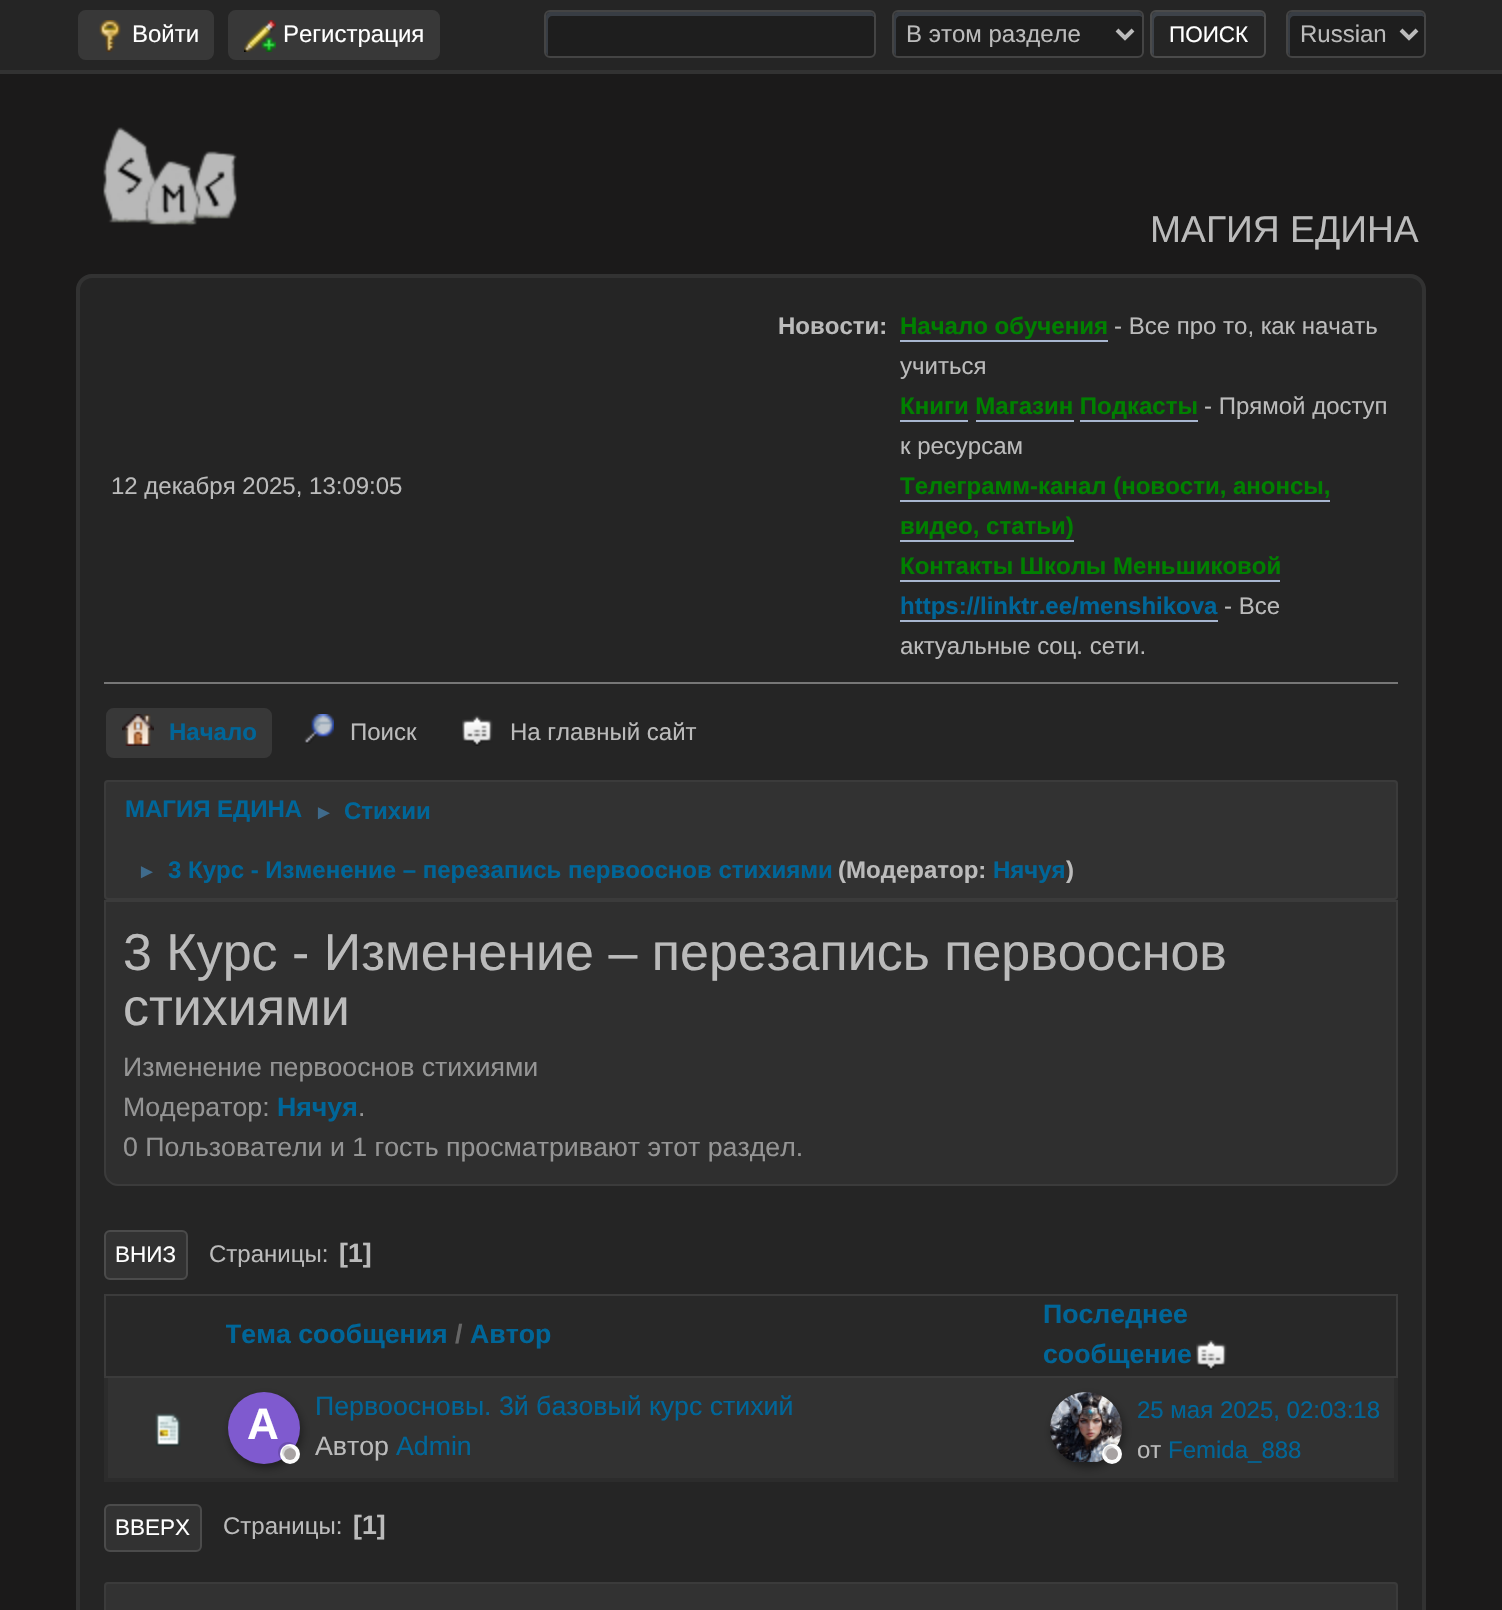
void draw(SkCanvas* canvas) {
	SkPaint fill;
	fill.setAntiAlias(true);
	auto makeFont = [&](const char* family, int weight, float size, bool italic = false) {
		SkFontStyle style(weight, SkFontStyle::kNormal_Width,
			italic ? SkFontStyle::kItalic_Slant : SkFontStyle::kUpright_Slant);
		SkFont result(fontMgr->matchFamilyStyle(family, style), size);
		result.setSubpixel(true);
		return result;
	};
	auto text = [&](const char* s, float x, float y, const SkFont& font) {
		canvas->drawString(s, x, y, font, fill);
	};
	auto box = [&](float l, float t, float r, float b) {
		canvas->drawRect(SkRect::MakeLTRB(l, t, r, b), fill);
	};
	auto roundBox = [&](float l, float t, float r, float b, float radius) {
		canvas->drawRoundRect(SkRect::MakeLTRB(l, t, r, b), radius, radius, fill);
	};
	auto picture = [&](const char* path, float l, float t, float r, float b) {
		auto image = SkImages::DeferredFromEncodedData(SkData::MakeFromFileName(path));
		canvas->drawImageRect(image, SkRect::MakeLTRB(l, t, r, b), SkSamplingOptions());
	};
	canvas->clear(0xFF1B1A1A);
	fill.setColor(0xFF252525);
	box(0, 0, 1502, 70);
	fill.setColor(0xFF323232);
	box(0, 70, 1502, 74);
	fill.setColor(0xFF383838);
	canvas->drawRoundRect(SkRect::MakeLTRB(79, 11, 213, 59), 7, 7, fill);
	fill.setStyle(SkPaint::kStroke_Style);
	fill.setStrokeWidth(2);
	canvas->drawRoundRect(SkRect::MakeLTRB(79, 11, 213, 59), 7, 7, fill);
	picture("image0.png", 99, 20, 121, 52);
	fill.setStyle(SkPaint::kFill_Style);
	canvas->drawRoundRect(SkRect::MakeLTRB(229, 11, 439, 59), 7, 7, fill);
	fill.setStyle(SkPaint::kStroke_Style);
	canvas->drawRoundRect(SkRect::MakeLTRB(229, 11, 439, 59), 7, 7, fill);
	picture("image1.png", 244, 20, 276, 52);
	fill.setStyle(SkPaint::kFill_Style);
	fill.setColor(0xFF1E1E1E);
	roundBox(544, 10, 876, 58, 6);
	fill.setColor(0xFF383D44);
	canvas->drawPath(SkPathBuilder().moveTo(552, 16).lineTo(872, 16).lineTo(874, 17).lineTo(874, 16).cubicTo(874, 14, 872, 12, 870, 12).lineTo(550, 12).cubicTo(548, 12, 546, 14, 546, 16).lineTo(546, 52).cubicTo(546, 53, 547, 55, 548, 55).lineTo(548, 20).cubicTo(548, 18, 550, 16, 552, 16).close().detach(), fill);
	fill.setStyle(SkPaint::kStroke_Style);
	fill.setColor(0xFF444444);
	canvas->drawRoundRect(SkRect::MakeLTRB(545, 11, 875, 57), 5, 5, fill);
	fill.setStyle(SkPaint::kFill_Style);
	fill.setColor(0xFF1E1E1E);
	roundBox(892, 10, 1144, 58, 6);
	fill.setColor(0xFF383D44);
	canvas->drawPath(SkPathBuilder().moveTo(900, 16).lineTo(1140, 16).lineTo(1142, 17).lineTo(1142, 16).cubicTo(1142, 14, 1140, 12, 1138, 12).lineTo(898, 12).cubicTo(896, 12, 894, 14, 894, 16).lineTo(894, 52).cubicTo(894, 53, 895, 55, 896, 55).lineTo(896, 20).cubicTo(896, 18, 898, 16, 900, 16).close().detach(), fill);
	fill.setStyle(SkPaint::kStroke_Style);
	fill.setColor(0xFF444444);
	canvas->drawRoundRect(SkRect::MakeLTRB(893, 11, 1143, 57), 5, 5, fill);
	fill.setStrokeWidth(4);
	fill.setColor(0xFFBBBBBB);
	canvas->drawPath(SkPathBuilder().moveTo(1117, 30).lineTo(1125, 38).lineTo(1133, 30).detach(), fill);
	fill.setStyle(SkPaint::kFill_Style);
	fill.setColor(0xFF3E434A);
	canvas->drawPath(SkPathBuilder().moveTo(1158, 16).lineTo(1262, 16).lineTo(1264, 17).lineTo(1264, 16).cubicTo(1264, 14, 1262, 12, 1260, 12).lineTo(1156, 12).cubicTo(1154, 12, 1152, 14, 1152, 16).lineTo(1152, 52).cubicTo(1152, 53, 1153, 55, 1154, 55).lineTo(1154, 20).cubicTo(1154, 18, 1156, 16, 1158, 16).close().detach(), fill);
	fill.setStyle(SkPaint::kStroke_Style);
	fill.setStrokeWidth(2);
	fill.setColor(0xFF4B4B4B);
	canvas->drawRoundRect(SkRect::MakeLTRB(1151, 11, 1265, 57), 5, 5, fill);
	fill.setStyle(SkPaint::kFill_Style);
	fill.setColor(0xFF1E1E1E);
	roundBox(1286, 10, 1426, 58, 6);
	fill.setColor(0xFF383D44);
	canvas->drawPath(SkPathBuilder().moveTo(1294, 16).lineTo(1422, 16).lineTo(1424, 17).lineTo(1424, 16).cubicTo(1424, 14, 1422, 12, 1420, 12).lineTo(1292, 12).cubicTo(1290, 12, 1288, 14, 1288, 16).lineTo(1288, 52).cubicTo(1288, 53, 1289, 55, 1290, 55).lineTo(1290, 20).cubicTo(1290, 18, 1292, 16, 1294, 16).close().detach(), fill);
	fill.setStyle(SkPaint::kStroke_Style);
	fill.setColor(0xFF444444);
	canvas->drawRoundRect(SkRect::MakeLTRB(1287, 11, 1425, 57), 5, 5, fill);
	fill.setStrokeWidth(4);
	fill.setColor(0xFFBBBBBB);
	canvas->drawPath(SkPathBuilder().moveTo(1401, 30).lineTo(1409, 38).lineTo(1417, 30).detach(), fill);
	picture("image2.png", 103, 127, 237, 226);
	fill.setStyle(SkPaint::kFill_Style);
	fill.setColor(0xFF252525);
	canvas->drawRoundRect(SkRect::MakeLTRB(78, 276, 1424, 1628), 14, 14, fill);
	fill.setStyle(SkPaint::kStroke_Style);
	fill.setColor(0xFF323232);
	canvas->drawRoundRect(SkRect::MakeLTRB(78, 276, 1424, 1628), 14, 14, fill);
	fill.setStyle(SkPaint::kFill_Style);
	fill.setColor(0xFF777777);
	box(104, 682, 1398, 684);
	fill.setColor(0xFFA8B6CF);
	box(900, 340, 1108, 342);
	box(900, 420, 968, 422);
	box(976, 420, 1074, 422);
	box(1080, 420, 1198, 422);
	box(900, 500, 1330, 502);
	box(900, 540, 1074, 542);
	box(900, 580, 1280, 582);
	box(900, 620, 1218, 622);
	fill.setColor(0xFF383838);
	canvas->drawRoundRect(SkRect::MakeLTRB(107, 709, 271, 757), 7, 7, fill);
	fill.setStyle(SkPaint::kStroke_Style);
	fill.setStrokeWidth(2);
	canvas->drawRoundRect(SkRect::MakeLTRB(107, 709, 271, 757), 7, 7, fill);
	picture("image3.png", 122, 714, 154, 746);
	picture("image4.png", 304, 714, 334, 744);
	picture("image5.png", 462, 715, 493, 746);
	fill.setStyle(SkPaint::kFill_Style);
	fill.setColor(0xFF323232);
	canvas->drawRoundRect(SkRect::MakeLTRB(105, 781, 1397, 899), 3, 3, fill);
	fill.setStyle(SkPaint::kStroke_Style);
	fill.setColor(0xFF3B3B3B);
	canvas->drawRoundRect(SkRect::MakeLTRB(105, 781, 1397, 899), 3, 3, fill);
	fill.setStyle(SkPaint::kFill_Style);
	fill.setColor(0xFF2F2F2F);
	canvas->drawPath(SkPathBuilder().moveTo(105, 901).lineTo(1397, 901).lineTo(1397, 1172).cubicTo(1397, 1179, 1391, 1185, 1384, 1185).lineTo(118, 1185).cubicTo(111, 1185, 105, 1179, 105, 1172).close().detach(), fill);
	fill.setStyle(SkPaint::kStroke_Style);
	fill.setColor(0xFF3B3B3B);
	canvas->drawPath(SkPathBuilder().moveTo(105, 901).lineTo(1397, 901).lineTo(1397, 1172).cubicTo(1397, 1179, 1391, 1185, 1384, 1185).lineTo(118, 1185).cubicTo(111, 1185, 105, 1179, 105, 1172).close().detach(), fill);
	fill.setStyle(SkPaint::kFill_Style);
	fill.setColor(0xFF323232);
	canvas->drawRoundRect(SkRect::MakeLTRB(105, 1231, 187, 1279), 5, 5, fill);
	fill.setStyle(SkPaint::kStroke_Style);
	fill.setColor(0xFF4B4B4B);
	canvas->drawRoundRect(SkRect::MakeLTRB(105, 1231, 187, 1279), 5, 5, fill);
	fill.setStyle(SkPaint::kFill_Style);
	fill.setColor(0xFF282828);
	canvas->drawRect(SkRect::MakeLTRB(105, 1295, 1397, 1377), fill);
	fill.setStyle(SkPaint::kStroke_Style);
	fill.setColor(0xFF3B3B3B);
	canvas->drawRect(SkRect::MakeLTRB(105, 1295, 1397, 1377), fill);
	picture("image6.png", 1196, 1340, 1227, 1370);
	fill.setStyle(SkPaint::kFill_Style);
	fill.setColor(0xFF323232);
	box(104, 1378, 1398, 1482);
	fill.setColor(0xFF2C2C2C);
	canvas->drawPath(SkPathBuilder().moveTo(1398, 1378).lineTo(1398, 1482).lineTo(1394, 1478).lineTo(1394, 1378).close().detach(), fill);
	fill.setColor(0x21000000);
	canvas->drawPath(SkPathBuilder().moveTo(1398, 1482).lineTo(104, 1482).lineTo(108, 1478).lineTo(1394, 1478).close().detach(), fill);
	canvas->drawPath(SkPathBuilder().moveTo(104, 1482).lineTo(104, 1378).lineTo(108, 1378).lineTo(108, 1478).close().detach(), fill);
	picture("image7.png", 155, 1413, 181, 1447);
	fill.setColor(0x66000000);
	fill.setMaskFilter(SkMaskFilter::MakeBlur(kNormal_SkBlurStyle, 4));
	canvas->drawRoundRect(SkRect::MakeLTRB(230, 1396, 302, 1468), 36, 36, fill);
	fill.setMaskFilter(nullptr);
	fill.setColor(0xFF7F5ACF);
	canvas->drawCircle(264, 1428, 36, fill);
	fill.setColor(0xFF6C4DB0);
	canvas->drawPath(SkPathBuilder().moveTo(288, 1442).cubicTo(278.5f, 1442, 274.5f, 1454.5f, 282, 1460).cubicTo(275, 1451, 287, 1439, 296, 1446).cubicTo(294, 1443.5f, 291.5f, 1442, 288, 1442).close().detach(), fill);
	fill.setColor(0xFFFDFDFD);
	canvas->drawCircle(290, 1454, 10, fill);
	fill.setColor(0xFFD7D7D7);
	canvas->drawPath(SkPathBuilder().moveTo(288, 1446).cubicTo(282, 1446, 280, 1454, 285, 1457).cubicTo(281.5f, 1452, 288, 1445.5f, 293, 1449).cubicTo(292, 1447, 290, 1446, 288, 1446).close().detach(), fill);
	fill.setColor(0xFFA7A2A2);
	canvas->drawCircle(290, 1454, 6, fill);
	fill.setColor(0x66000000);
	fill.setMaskFilter(SkMaskFilter::MakeBlur(kNormal_SkBlurStyle, 4));
	canvas->drawRoundRect(SkRect::MakeLTRB(1052, 1396, 1124, 1468), 36, 36, fill);
	fill.setMaskFilter(nullptr);
	picture("image8.png", 1050, 1392, 1122, 1462);
	fill.setColor(0x26000000);
	canvas->drawPath(SkPathBuilder().moveTo(1110, 1442).cubicTo(1100.5f, 1442, 1096.5f, 1454.5f, 1104, 1460).cubicTo(1097, 1451, 1109, 1439, 1118, 1446).cubicTo(1116, 1443.5f, 1113.5f, 1442, 1110, 1442).close().detach(), fill);
	fill.setColor(0xFFFDFDFD);
	canvas->drawCircle(1112, 1454, 10, fill);
	fill.setColor(0xFFD7D7D7);
	canvas->drawPath(SkPathBuilder().moveTo(1110, 1446).cubicTo(1104, 1446, 1102, 1454, 1107, 1457).cubicTo(1103.5f, 1452, 1110, 1445.5f, 1115, 1449).cubicTo(1114, 1447, 1112, 1446, 1110, 1446).close().detach(), fill);
	fill.setColor(0xFFA7A2A2);
	canvas->drawCircle(1112, 1454, 6, fill);
	fill.setColor(0xFF323232);
	canvas->drawRoundRect(SkRect::MakeLTRB(105, 1505, 201, 1551), 5, 5, fill);
	fill.setStyle(SkPaint::kStroke_Style);
	fill.setColor(0xFF4B4B4B);
	canvas->drawRoundRect(SkRect::MakeLTRB(105, 1505, 201, 1551), 5, 5, fill);
	fill.setStyle(SkPaint::kFill_Style);
	fill.setColor(0xFF323232);
	canvas->drawRoundRect(SkRect::MakeLTRB(105, 1583, 1397, 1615), 3, 3, fill);
	fill.setStyle(SkPaint::kStroke_Style);
	fill.setColor(0xFF3B3B3B);
	canvas->drawRoundRect(SkRect::MakeLTRB(105, 1583, 1397, 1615), 3, 3, fill);
	auto font1 = makeFont("Liberation Sans", 400, 24);
	fill.setStyle(SkPaint::kFill_Style);
	fill.setColor(0xFFFFFFFF);
	text("Войти", 132, 42, font1);
	text("Регистрация", 283, 42, font1);
	fill.setColor(0xFFBBBBBB);
	text("В этом разделе", 906, 42, font1);
	auto font2 = makeFont("Liberation Sans", 400, 22.5f);
	fill.setColor(0xFFFFFFFF);
	text("ПОИСК", 1169, 42, font2);
	fill.setColor(0xFFBBBBBB);
	text("Russian", 1300, 42, font1);
	auto font3 = makeFont("Liberation Sans", 400, 37.25f);
	text("МАГИЯ ЕДИНА", 1150, 242, font3);
	text("12 декабря 2025, 13:09:05", 111, 494, font1);
	auto font4 = makeFont("Liberation Sans", 700, 24);
	text("Новости:", 778, 334, font4);
	fill.setColor(0xFF008000);
	text("Начало обучения", 900, 334, font4);
	fill.setColor(0xFFBBBBBB);
	text("- Все про то, как начать", 1114, 334, font1);
	text("учиться", 900, 374, font1);
	fill.setColor(0xFF008000);
	text("Книги Магазин Подкасты", 900, 414, font4);
	fill.setColor(0xFFBBBBBB);
	text("- Прямой доступ", 1204, 414, font1);
	text("к ресурсам", 900, 454, font1);
	fill.setColor(0xFF008000);
	text("Телеграмм-канал (новости, анонсы,", 900, 494, font4);
	text("видео, статьи)", 900, 534, font4);
	text("Контакты Школы Меньшиковой", 900, 574, font4);
	fill.setColor(0xFF006699);
	text("https://linktr.ee/menshikova", 900, 614, font4);
	fill.setColor(0xFFBBBBBB);
	text("- Все", 1224, 614, font1);
	text("актуальные соц. сети.", 900, 654, font1);
	fill.setColor(0xFF006699);
	text("Начало", 169, 740, font4);
	fill.setColor(0xFFBBBBBB);
	text("Поиск", 350, 740, font1);
	text("На главный сайт", 510, 740, font1);
	fill.setColor(0xFF006699);
	text("МАГИЯ ЕДИНА", 125, 817, font4);
	auto font5 = makeFont("Liberation Sans", 400, 20);
	fill.setColor(0xFF3F6B8C);
	text("►", 314, 819, font5);
	fill.setColor(0xFF006699);
	text("Стихии", 344, 819, font4);
	fill.setColor(0xFF3F6B8C);
	text("►", 137, 878, font5);
	fill.setColor(0xFF006699);
	text("3 Курс - Изменение – перезапись первооснов стихиями", 168, 878, font4);
	fill.setColor(0xFFBBBBBB);
	text("(Модератор:", 838, 878, font4);
	fill.setColor(0xFF006699);
	text("Нячуя", 993, 878, font4);
	fill.setColor(0xFFBBBBBB);
	text(")", 1066, 878, font4);
	auto font6 = makeFont("Liberation Sans", 400, 52);
	text("3 Курс - Изменение – перезапись первооснов", 123, 970, font6);
	text("стихиями", 123, 1025, font6);
	auto font7 = makeFont("Liberation Sans", 400, 26.7f);
	fill.setColor(0xFF959595);
	text("Изменение первооснов стихиями", 123, 1076, font7);
	text("Модератор:", 123, 1116, font7);
	auto font8 = makeFont("Liberation Sans", 700, 26.7f);
	fill.setColor(0xFF006699);
	text("Нячуя", 277, 1116, font8);
	fill.setColor(0xFF959595);
	text(".", 358, 1116, font7);
	text("0 Пользователи и 1 гость просматривают этот раздел.", 123, 1156, font7);
	fill.setColor(0xFFFFFFFF);
	text("ВНИЗ", 115, 1262, font2);
	fill.setColor(0xFFBBBBBB);
	text("Страницы:", 209, 1262, font1);
	text("[1]", 339, 1262, font8);
	canvas->save();
	canvas->clipRect(SkRect::MakeLTRB(226, 1316, 1002, 1356));
	fill.setColor(0xFF006699);
	text("Тема сообщения", 225, 1343, font8);
	canvas->restore();
	fill.setColor(0xFF666666);
	text("/", 455, 1343, font8);
	fill.setColor(0xFF006699);
	text("Автор", 470, 1343, font8);
	text("Последнее", 1043, 1323, font8);
	text("сообщение", 1043, 1363, font8);
	auto font9 = makeFont("Liberation Sans", 700, 44);
	fill.setColor(0xFFFFFFFF);
	text("A", 247, 1439, font9);
	fill.setColor(0xFF006699);
	text("Первоосновы. 3й базовый курс стихий", 315, 1415, font7);
	fill.setColor(0xFFBBBBBB);
	text("Автор", 315, 1455, font7);
	fill.setColor(0xFF006699);
	text("Admin", 396, 1455, font7);
	text("25 мая 2025, 02:03:18", 1137, 1418, font1);
	fill.setColor(0xFFBBBBBB);
	text("от", 1137, 1458, font1);
	fill.setColor(0xFF006699);
	text("Femida_888", 1168, 1458, font1);
	fill.setColor(0xFFFFFFFF);
	text("ВВЕРХ", 115, 1535, font2);
	fill.setColor(0xFFBBBBBB);
	text("Страницы:", 223, 1534, font1);
	text("[1]", 353, 1534, font8);
}
